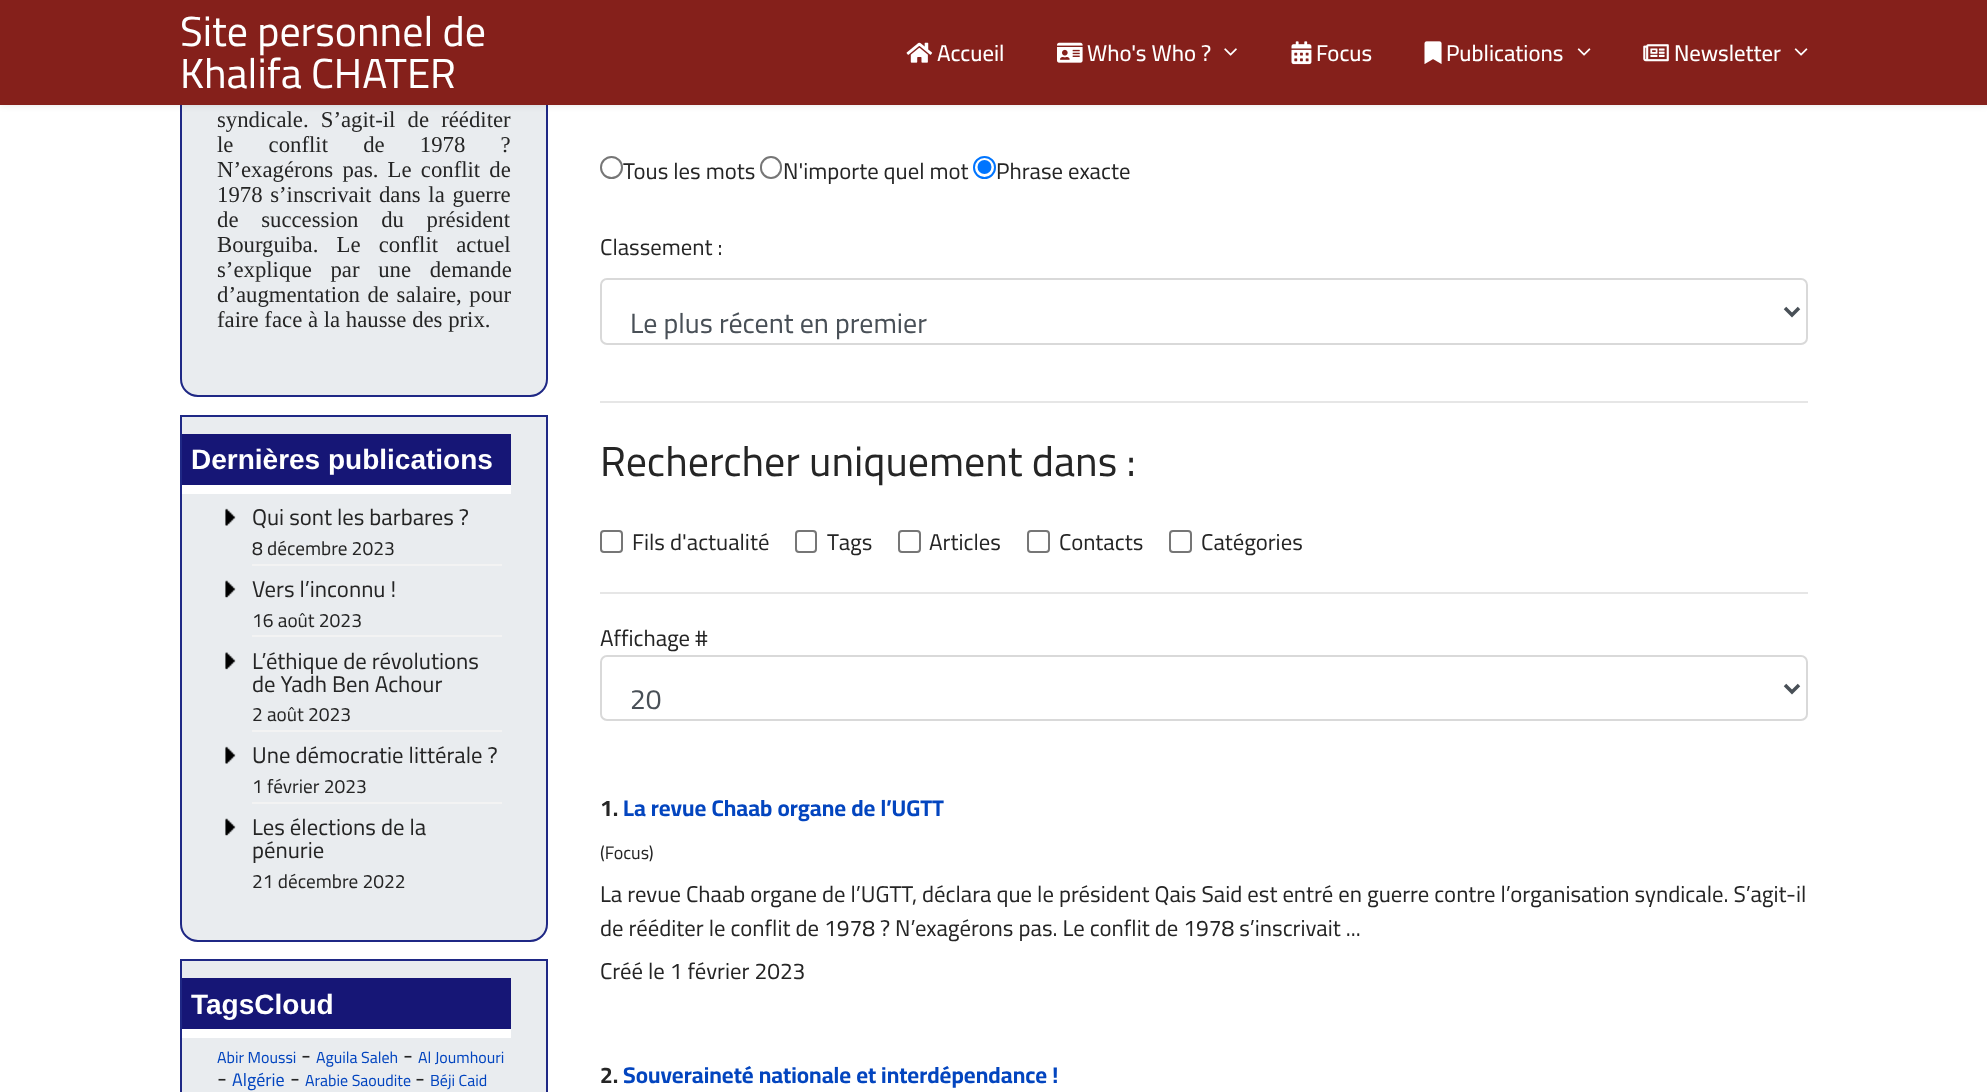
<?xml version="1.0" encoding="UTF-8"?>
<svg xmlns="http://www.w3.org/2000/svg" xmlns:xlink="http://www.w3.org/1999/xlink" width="1987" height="1092">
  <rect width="100%" height="100%" fill="#ffffff" />
  <path d="M 181 -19 h 366 v 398 c 0 9.5 -7.5 17 -17 17 h -332 c -9.5 0 -17 -7.5 -17 -17 z" fill="#e9ecef" stroke="#1f2885" stroke-width="2" />
  <rect width="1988" height="105" fill="#000000" fill-opacity="0.1" filter="blur(3.5px)" />
  <rect width="1987" height="105" fill="#85201b" />
  <image x="906" y="42" width="27" height="21" xlink:href="image1.png" />
  <image x="1057" y="42" width="26" height="21" xlink:href="image2.png" />
  <image x="1224" y="48" width="13" height="8" xlink:href="image3.png" />
  <image x="1291" y="41" width="21" height="24" xlink:href="image4.png" />
  <image x="1424" y="41" width="18" height="23" xlink:href="image5.png" />
  <image x="1577" y="48" width="14" height="8" xlink:href="image6.png" />
  <image x="1643" y="44" width="26" height="18" xlink:href="image7.png" />
  <image x="1794" y="48" width="14" height="8" xlink:href="image6.png" />
  <path d="M 181 416 h 366 v 508 c 0 9.5 -7.5 17 -17 17 h -332 c -9.5 0 -17 -7.5 -17 -17 z" fill="#e9ecef" stroke="#1f2885" stroke-width="2" />
  <rect x="182" y="434" width="329" height="51" fill="#161676" />
  <rect x="182" y="485" width="329" height="9" fill="#ffffff" />
  <rect x="252" y="564" width="250" height="2" fill="#f3f3f3" />
  <image x="225" y="508" width="11" height="18" xlink:href="image8.png" />
  <image x="225" y="509" width="10" height="17" xlink:href="image9.png" />
  <rect x="252" y="635" width="250" height="2" fill="#f3f3f3" />
  <image x="225" y="580" width="11" height="18" xlink:href="image10.png" />
  <image x="225" y="580" width="10" height="17" xlink:href="image11.png" />
  <rect x="252" y="730" width="250" height="2" fill="#f3f3f3" />
  <image x="225" y="652" width="11" height="18" xlink:href="image12.png" />
  <image x="225" y="652" width="10" height="17" xlink:href="image13.png" />
  <rect x="252" y="802" width="250" height="2" fill="#f3f3f3" />
  <image x="225" y="746" width="11" height="18" xlink:href="image8.png" />
  <image x="225" y="747" width="10" height="17" xlink:href="image9.png" />
  <image x="225" y="818" width="11" height="18" xlink:href="image10.png" />
  <image x="225" y="818" width="10" height="17" xlink:href="image11.png" />
  <rect x="181" y="960" width="366" height="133" fill="#e9ecef" stroke="#1f2885" stroke-width="2" />
  <rect x="182" y="978" width="329" height="51" fill="#161676" />
  <rect x="182" y="1029" width="329" height="9" fill="#ffffff" />
  <circle cx="611.5" cy="167.5" r="10.5" fill="none" stroke="#767676" stroke-width="2" />
  <rect x="761" y="157" width="20" height="21" rx="10" fill="none" stroke="#767676" stroke-width="2" />
  <circle cx="984.5" cy="167.5" r="10.5" fill="none" stroke="#0075ff" stroke-width="2" />
  <circle cx="984.5" cy="167" r="7" fill="#0075ff" />
  <rect x="601" y="279" width="1206" height="65" rx="6" fill="none" stroke="#d9d9d9" stroke-width="2" />
  <path d="M 1785 308 l 7 7 l 7 -7" fill="none" stroke="#495057" stroke-width="3.5" />
  <rect x="600" y="401" width="1208" height="2" fill="#e6e6e6" />
  <rect x="601" y="531" width="21" height="21" rx="3" fill="none" stroke="#767676" stroke-width="2" />
  <rect x="796" y="531" width="20" height="21" rx="3" fill="none" stroke="#767676" stroke-width="2" />
  <rect x="899" y="531" width="21" height="21" rx="3" fill="none" stroke="#767676" stroke-width="2" />
  <rect x="1028" y="531" width="21" height="21" rx="3" fill="none" stroke="#767676" stroke-width="2" />
  <rect x="1170" y="531" width="21" height="21" rx="3" fill="none" stroke="#767676" stroke-width="2" />
  <rect x="600" y="592" width="1208" height="2" fill="#e6e6e6" />
  <rect x="601" y="656" width="1206" height="64" rx="6" fill="none" stroke="#d9d9d9" stroke-width="2" />
  <path d="M 1785 685 l 7 7 l 7 -7" fill="none" stroke="#495057" stroke-width="3.5" />
  <text x="180" y="46" style="font-family: Cairo; font-size: 42px; fill: #ffffff">Site personnel de</text>
  <text x="180" y="88" style="font-family: Cairo; font-size: 42px; fill: #ffffff">Khalifa CHATER</text>
  <text x="937" y="61" style="font-family: Cairo; font-size: 22.75px; font-weight: 500; fill: #ffffff">Accueil</text>
  <text x="1087" y="61" style="font-family: Cairo; font-size: 22.75px; font-weight: 500; fill: #ffffff">Who's Who ?</text>
  <text x="1316" y="61" style="font-family: Cairo; font-size: 22.75px; font-weight: 500; fill: #ffffff">Focus</text>
  <text x="1446" y="61" style="font-family: Cairo; font-size: 22.75px; font-weight: 500; fill: #ffffff">Publications</text>
  <text x="1674" y="61" style="font-family: Cairo; font-size: 22.75px; font-weight: 500; fill: #ffffff">Newsletter</text>
  <text x="217" y="127" word-spacing="6.5" style="font-family: Liberation Serif; font-size: 22.75px; fill: #252525">syndicale. S’agit-il de rééditer</text>
  <text x="217" y="152" word-spacing="29.5" style="font-family: Liberation Serif; font-size: 22.75px; fill: #252525">le conflit de 1978 ?</text>
  <text x="217" y="177" word-spacing="3.5" style="font-family: Liberation Serif; font-size: 22.75px; fill: #252525">N’exagérons pas. Le conflit de</text>
  <text x="217" y="202" word-spacing="2" style="font-family: Liberation Serif; font-size: 22.75px; fill: #252525">1978 s’inscrivait dans la guerre</text>
  <text x="217" y="227" word-spacing="17" style="font-family: Liberation Serif; font-size: 22.75px; fill: #252525">de succession du président</text>
  <text x="217" y="252" word-spacing="12.5" style="font-family: Liberation Serif; font-size: 22.75px; fill: #252525">Bourguiba. Le conflit actuel</text>
  <text x="217" y="277" word-spacing="13" style="font-family: Liberation Serif; font-size: 22.75px; fill: #252525">s’explique par une demande</text>
  <text x="217" y="302" word-spacing="2" style="font-family: Liberation Serif; font-size: 22.75px; fill: #252525">d’augmentation de salaire, pour</text>
  <text x="217" y="327" style="font-family: Liberation Serif; font-size: 22.75px; fill: #252525">faire face à la hausse des prix.</text>
  <text x="191" y="469" style="font-family: Liberation Sans; font-size: 28px; font-weight: bold; fill: #ffffff">Dernières publications</text>
  <text x="252" y="525" style="font-family: Cairo; font-size: 22.75px; fill: #252525">Qui sont les barbares ?</text>
  <text x="252" y="555" style="font-family: Cairo; font-size: 19.25px; fill: #252525">8 décembre 2023</text>
  <text x="252" y="597" style="font-family: Cairo; font-size: 22.75px; fill: #252525">Vers l’inconnu !</text>
  <text x="252" y="627" style="font-family: Cairo; font-size: 19.25px; fill: #252525">16 août 2023</text>
  <text x="252" y="669" style="font-family: Cairo; font-size: 22.75px; fill: #252525">L’éthique de révolutions</text>
  <text x="252" y="692" style="font-family: Cairo; font-size: 22.75px; fill: #252525">de Yadh Ben Achour</text>
  <text x="252" y="721" style="font-family: Cairo; font-size: 19.25px; fill: #252525">2 août 2023</text>
  <text x="252" y="763" style="font-family: Cairo; font-size: 22.75px; fill: #252525">Une démocratie littérale ?</text>
  <text x="252" y="793" style="font-family: Cairo; font-size: 19.25px; fill: #252525">1 février 2023</text>
  <text x="252" y="835" style="font-family: Cairo; font-size: 22.75px; fill: #252525">Les élections de la</text>
  <text x="252" y="858" style="font-family: Cairo; font-size: 22.75px; fill: #252525">pénurie</text>
  <text x="252" y="888" style="font-family: Cairo; font-size: 19.25px; fill: #252525">21 décembre 2022</text>
  <text x="191" y="1014" style="font-family: Liberation Sans; font-size: 28px; font-weight: bold; fill: #ffffff">TagsCloud</text>
  <text x="217" y="1063" style="font-family: Cairo; font-size: 16px; fill: #0345bf">Abir Moussi</text>
  <text x="301" y="1063" style="font-family: Cairo; font-size: 22.75px; fill: #252525">-</text>
  <text x="316" y="1063" style="font-family: Cairo; font-size: 16px; fill: #0345bf">Aguila Saleh</text>
  <text x="403" y="1063" style="font-family: Cairo; font-size: 22.75px; fill: #252525">-</text>
  <text x="418" y="1063" style="font-family: Cairo; font-size: 16px; fill: #0345bf">Al Joumhouri</text>
  <text x="217" y="1086" style="font-family: Cairo; font-size: 22.75px; fill: #252525">-</text>
  <text x="232" y="1086" style="font-family: Cairo; font-size: 18px; fill: #0345bf">Algérie</text>
  <text x="290" y="1086" style="font-family: Cairo; font-size: 22.75px; fill: #252525">-</text>
  <text x="305" y="1086" style="font-family: Cairo; font-size: 16px; fill: #0345bf">Arabie Saoudite</text>
  <text x="415" y="1086" style="font-family: Cairo; font-size: 22.75px; fill: #252525">-</text>
  <text x="430" y="1086" style="font-family: Cairo; font-size: 16px; fill: #0345bf">Béji Caid</text>
  <text x="623" y="179" style="font-family: Cairo; font-size: 22.75px; fill: #252525">Tous les mots</text>
  <text x="783" y="179" style="font-family: Cairo; font-size: 22.75px; fill: #252525">N'importe quel mot</text>
  <text x="996" y="179" style="font-family: Cairo; font-size: 22.75px; fill: #252525">Phrase exacte</text>
  <text x="600" y="255" style="font-family: Cairo; font-size: 22.75px; fill: #252525">Classement :</text>
  <text x="630" y="333" style="font-family: Cairo; font-size: 28px; fill: #495057">Le plus récent en premier</text>
  <text x="600" y="476" style="font-family: Cairo; font-size: 42px; fill: #252525">Rechercher uniquement dans :</text>
  <text x="632" y="550" style="font-family: Cairo; font-size: 22.75px; fill: #252525">Fils d'actualité</text>
  <text x="827" y="550" style="font-family: Cairo; font-size: 22.75px; fill: #252525">Tags</text>
  <text x="929" y="550" style="font-family: Cairo; font-size: 22.75px; fill: #252525">Articles</text>
  <text x="1059" y="550" style="font-family: Cairo; font-size: 22.75px; fill: #252525">Contacts</text>
  <text x="1201" y="550" style="font-family: Cairo; font-size: 22.75px; fill: #252525">Catégories</text>
  <text x="600" y="646" style="font-family: Cairo; font-size: 22.75px; fill: #252525">Affichage #</text>
  <text x="630" y="709" style="font-family: Cairo; font-size: 28px; fill: #495057">20</text>
  <text x="600" y="816" style="font-family: Cairo; font-size: 22.75px; font-weight: bold; fill: #252525">1.</text>
  <text x="623" y="816" style="font-family: Cairo; font-size: 22.75px; font-weight: bold; fill: #0345bf">La revue Chaab organe de l’UGTT</text>
  <text x="600" y="859" style="font-family: Cairo; font-size: 18px; fill: #252525">(Focus)</text>
  <text x="600" y="902" style="font-family: Cairo; font-size: 22.75px; fill: #252525">La revue Chaab organe de l’UGTT, déclara que le président Qais Said est entré en guerre contre l’organisation syndicale. S’agit-il</text>
  <text x="600" y="936" style="font-family: Cairo; font-size: 22.75px; fill: #252525">de rééditer le conflit de 1978 ? N’exagérons pas. Le conflit de 1978 s’inscrivait ...</text>
  <text x="600" y="979" style="font-family: Cairo; font-size: 22.75px; fill: #252525">Créé le 1 février 2023</text>
  <text x="600" y="1083" style="font-family: Cairo; font-size: 22.75px; font-weight: bold; fill: #252525">2.</text>
  <text x="623" y="1083" style="font-family: Cairo; font-size: 22.75px; font-weight: bold; fill: #0345bf">Souveraineté nationale et interdépendance !</text>
</svg>
